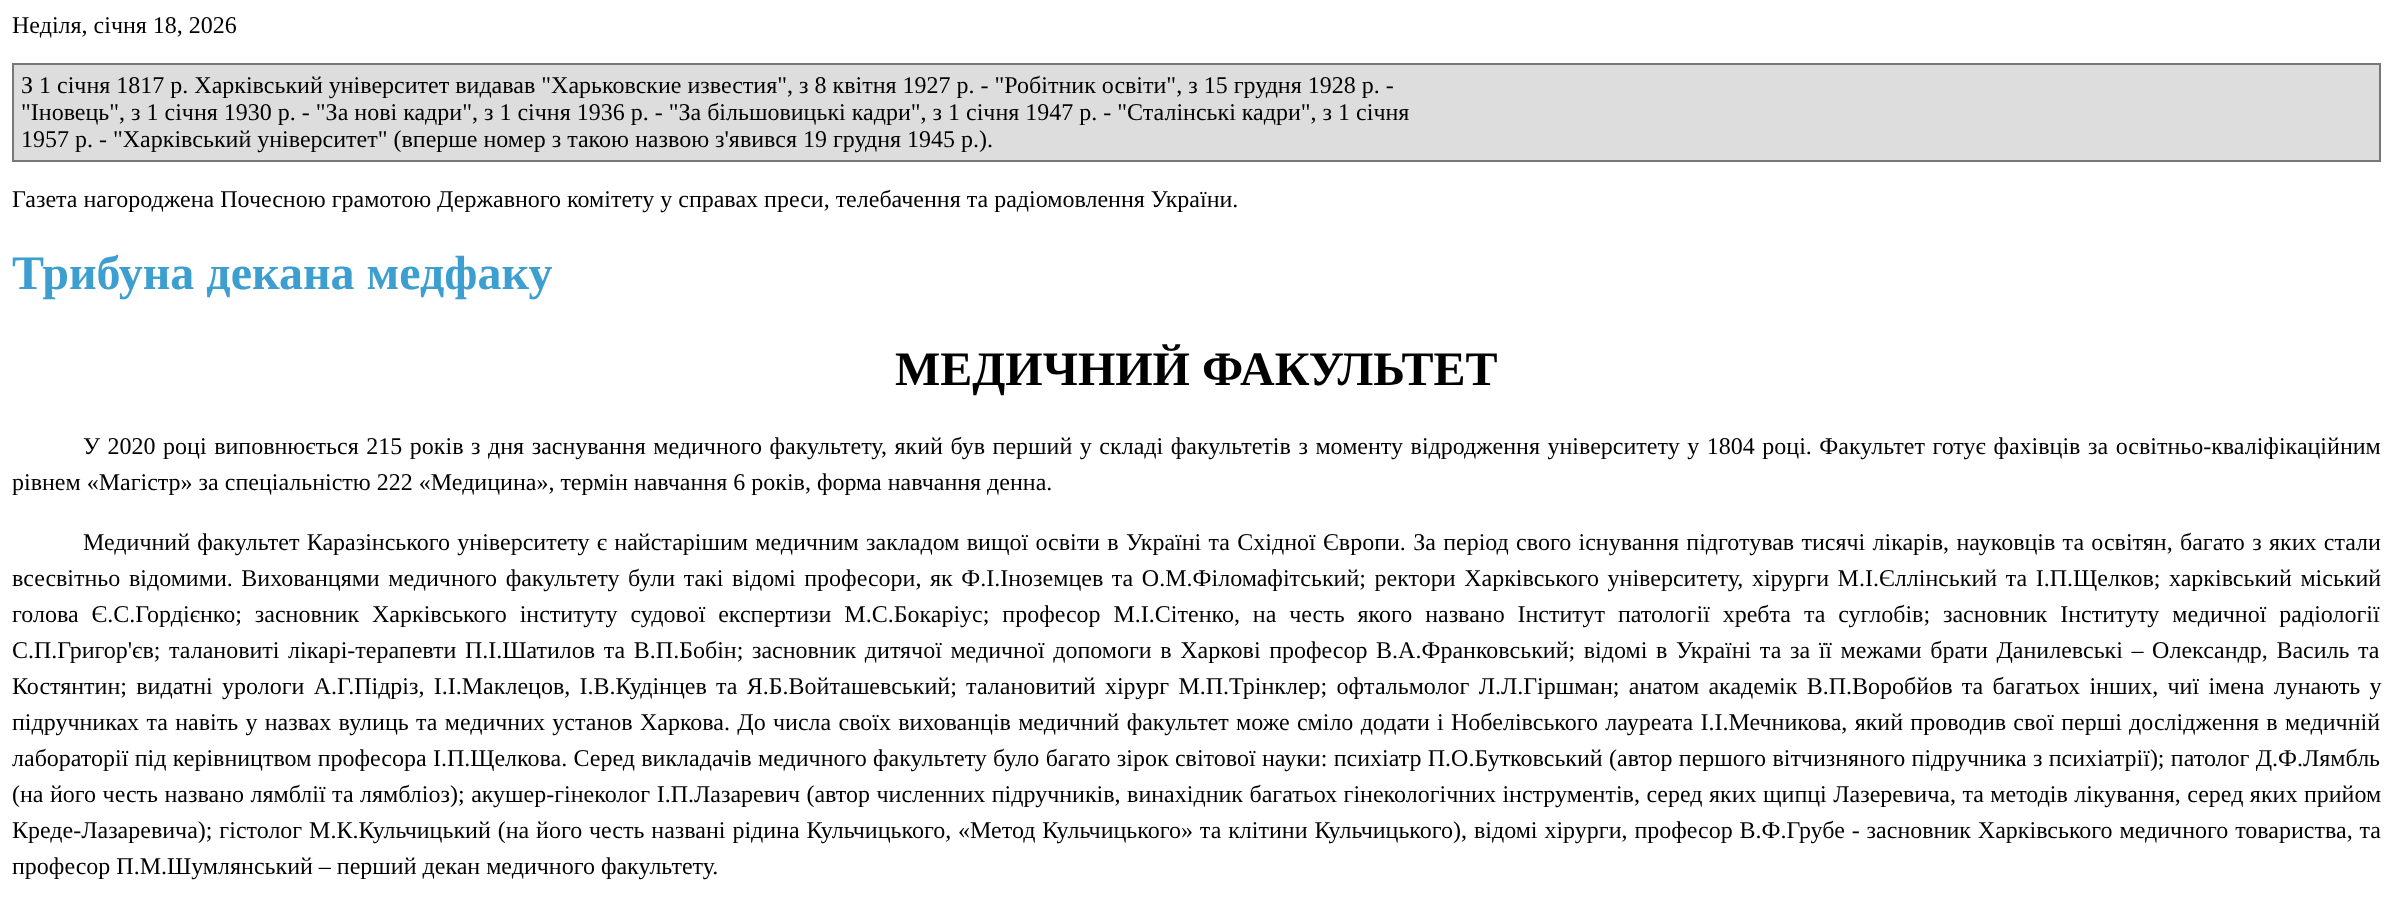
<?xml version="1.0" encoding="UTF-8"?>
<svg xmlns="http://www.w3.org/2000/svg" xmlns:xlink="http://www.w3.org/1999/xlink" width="2392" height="908">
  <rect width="100%" height="100%" fill="#ffffff" />
  <rect x="13" y="64" width="2367" height="97" fill="#dddddd" stroke="#777777" stroke-width="2" />
  <text x="12" y="33" style="font-family: Liberation Serif; font-size: 24px; fill: #000000">Неділя, січня 18, 2026</text>
  <text x="21" y="93" style="font-family: Liberation Serif; font-size: 24px; fill: #000000">З 1 січня 1817 р. Харківський університет видавав "Харьковские известия", з 8 квітня 1927 р. - "Робітник освіти", з 15 грудня 1928 р. -</text>
  <text x="21" y="120" style="font-family: Liberation Serif; font-size: 24px; fill: #000000">"Іновець", з 1 січня 1930 р. - "За нові кадри", з 1 січня 1936 р. - "За більшовицькі кадри", з 1 січня 1947 р. - "Сталінські кадри", з 1 січня</text>
  <text x="21" y="147" style="font-family: Liberation Serif; font-size: 24px; fill: #000000">1957 р. - "Харківський університет" (вперше номер з такою назвою з'явився 19 грудня 1945 р.).</text>
  <text x="12" y="207" style="font-family: Liberation Serif; font-size: 24px; fill: #000000">Газета нагороджена Почесною грамотою Державного комітету у справах преси, телебачення та радіомовлення України.</text>
  <text x="12" y="289" style="font-family: Liberation Serif; font-size: 48px; font-weight: bold; fill: #3d9fd0">Трибуна декана медфаку</text>
  <text x="895" y="385" style="font-family: Liberation Serif; font-size: 48px; font-weight: bold; fill: #000000">МЕДИЧНИЙ ФАКУЛЬТЕТ</text>
  <text x="83" y="454" word-spacing="1.55" style="font-family: Liberation Serif; font-size: 24px; fill: #000000">У 2020 році виповнюється 215 років з дня заснування медичного факультету, який був перший у складі факультетів з моменту відродження університету у 1804 році. Факультет готує фахівців за освітньо-кваліфікаційним</text>
  <text x="12" y="490" style="font-family: Liberation Serif; font-size: 24px; fill: #000000">рівнем «Магістр» за спеціальністю 222 «Медицина», термін навчання 6 років, форма навчання денна.</text>
  <text x="83" y="550" word-spacing="1.3" style="font-family: Liberation Serif; font-size: 24px; fill: #000000">Медичний факультет Каразінського університету є найстарішим медичним закладом вищої освіти в Україні та Східної Європи. За період свого існування підготував тисячі лікарів, науковців та освітян, багато з яких стали</text>
  <text x="12" y="586" word-spacing="2.6" style="font-family: Liberation Serif; font-size: 24px; fill: #000000">всесвітньо відомими. Вихованцями медичного факультету були такі відомі професори, як Ф.І.Іноземцев та О.М.Філомафітський; ректори Харківського університету, хірурги М.І.Єллінський та І.П.Щелков; харківський міський</text>
  <text x="12" y="622" word-spacing="6.9" style="font-family: Liberation Serif; font-size: 24px; fill: #000000">голова Є.С.Гордієнко; засновник Харківського інституту судової експертизи М.С.Бокаріус; професор М.І.Сітенко, на честь якого названо Інститут патології хребта та суглобів; засновник Інституту медичної радіології</text>
  <text x="12" y="658" word-spacing="2.6" style="font-family: Liberation Serif; font-size: 24px; fill: #000000">С.П.Григор'єв; талановиті лікарі-терапевти П.І.Шатилов та В.П.Бобін; засновник дитячої медичної допомоги в Харкові професор В.А.Франковський; відомі в Україні та за її межами брати Данилевські – Олександр, Василь та</text>
  <text x="12" y="694" word-spacing="3.3" style="font-family: Liberation Serif; font-size: 24px; fill: #000000">Костянтин; видатні урологи А.Г.Підріз, І.І.Маклецов, І.В.Кудінцев та Я.Б.Войташевський; талановитий хірург М.П.Трінклер; офтальмолог Л.Л.Гіршман; анатом академік В.П.Воробйов та багатьох інших, чиї імена лунають у</text>
  <text x="12" y="730" word-spacing="1.3" style="font-family: Liberation Serif; font-size: 24px; fill: #000000">підручниках та навіть у назвах вулиць та медичних установ Харкова. До числа своїх вихованців медичний факультет може сміло додати і Нобелівського лауреата І.І.Мечникова, який проводив свої перші дослідження в медичній</text>
  <text x="12" y="766" word-spacing="0.3" style="font-family: Liberation Serif; font-size: 24px; fill: #000000">лабораторії під керівництвом професора І.П.Щелкова. Серед викладачів медичного факультету було багато зірок світової науки: психіатр П.О.Бутковський (автор першого вітчизняного підручника з психіатрії); патолог Д.Ф.Лямбль</text>
  <text x="12" y="802" word-spacing="0.5" style="font-family: Liberation Serif; font-size: 24px; fill: #000000">(на його честь названо лямблії та лямбліоз); акушер-гінеколог І.П.Лазаревич (автор численних підручників, винахідник багатьох гінекологічних інструментів, серед яких щипці Лазеревича, та методів лікування, серед яких прийом</text>
  <text x="12" y="838" word-spacing="0.9" style="font-family: Liberation Serif; font-size: 24px; fill: #000000">Креде-Лазаревича); гістолог М.К.Кульчицький (на його честь названі рідина Кульчицького, «Метод Кульчицького» та клітини Кульчицького), відомі хірурги, професор В.Ф.Грубе - засновник Харківського медичного товариства, та</text>
  <text x="12" y="874" style="font-family: Liberation Serif; font-size: 24px; fill: #000000">професор П.М.Шумлянський – перший декан медичного факультету.</text>
</svg>
